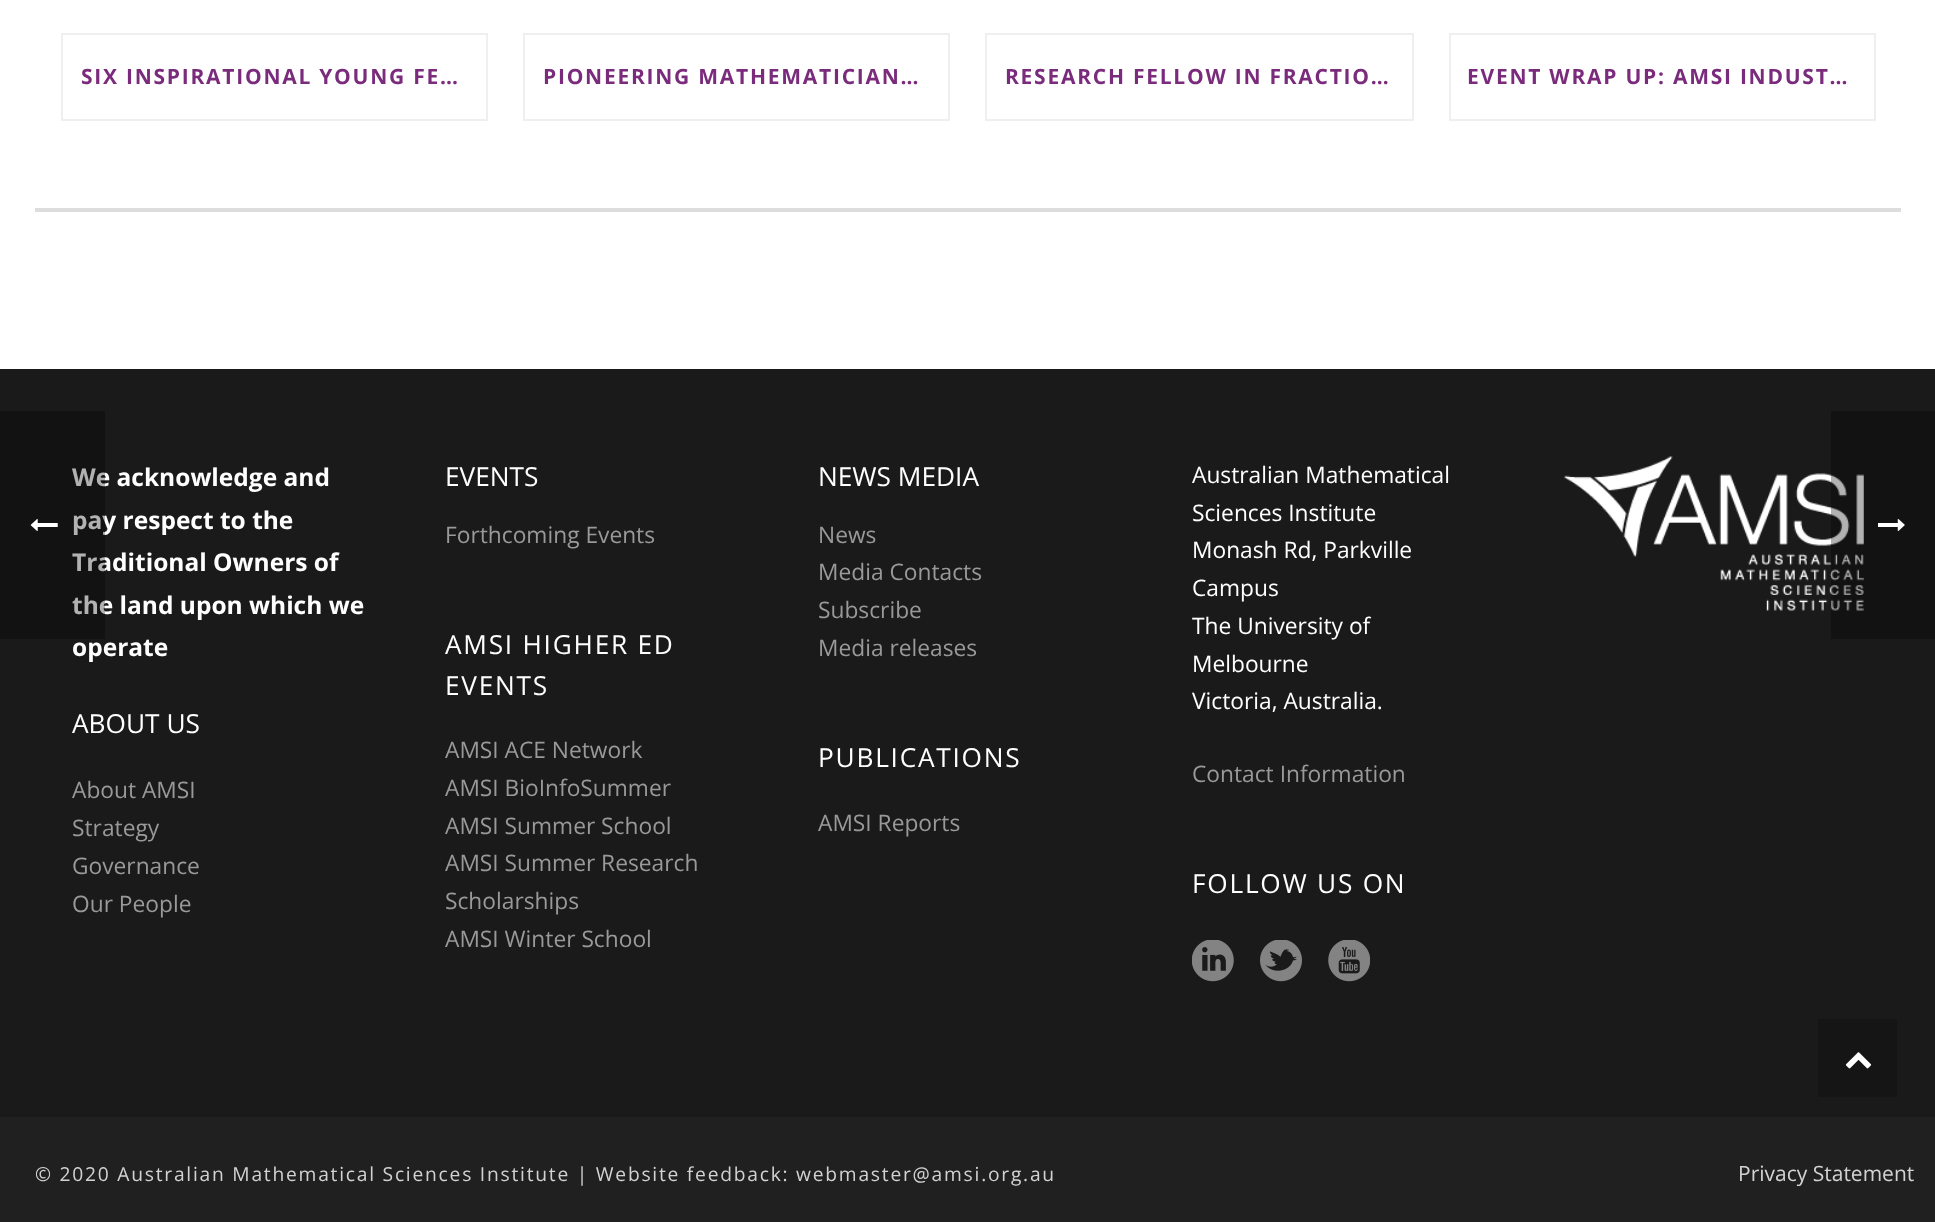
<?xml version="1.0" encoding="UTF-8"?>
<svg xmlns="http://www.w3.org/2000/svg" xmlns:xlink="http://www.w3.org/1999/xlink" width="1935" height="1222">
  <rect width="100%" height="100%" fill="#1a1a1a" />
  <rect width="1935" height="369" fill="#ffffff" />
  <rect x="35" y="208" width="1866" height="4" fill="#dddddd" />
  <rect x="62" y="34" width="425" height="86" fill="none" stroke="#efefef" stroke-width="2" />
  <rect x="524" y="34" width="425" height="86" fill="none" stroke="#efefef" stroke-width="2" />
  <rect x="986" y="34" width="427" height="86" fill="none" stroke="#efefef" stroke-width="2" />
  <rect x="1450" y="34" width="425" height="86" fill="none" stroke="#efefef" stroke-width="2" />
  <image x="1192" y="940" width="42" height="42" xlink:href="image1.png" />
  <image x="1260" y="940" width="42" height="42" xlink:href="image2.png" />
  <image x="1328" y="940" width="42" height="42" xlink:href="image3.png" />
  <image x="1564" y="456" width="300" height="155" xlink:href="image4.png" />
  <rect y="1117" width="1935" height="105" fill="#202020" />
  <rect x="1831" y="411" width="104" height="228" fill="#000000" fill-opacity="0.3" />
  <image x="1878" y="519" width="27" height="12" xlink:href="image6.png" />
  <rect x="1818" y="1019" width="79" height="78" fill="#151515" />
  <image x="1845" y="1052" width="27" height="17" xlink:href="image7.png" />
  <text x="81" y="84" style="font-family: Open Sans; font-size: 21px; font-weight: bold; letter-spacing: 1.75px; fill: #7a2b7c">SIX INSPIRATIONAL YOUNG FE…</text>
  <text x="543" y="84" style="font-family: Open Sans; font-size: 21px; font-weight: bold; letter-spacing: 1.75px; fill: #7a2b7c">PIONEERING MATHEMATICIAN…</text>
  <text x="1005" y="84" style="font-family: Open Sans; font-size: 21px; font-weight: bold; letter-spacing: 1.75px; fill: #7a2b7c">RESEARCH FELLOW IN FRACTIO…</text>
  <text x="1467" y="84" style="font-family: Open Sans; font-size: 21px; font-weight: bold; letter-spacing: 1.75px; fill: #7a2b7c">EVENT WRAP UP: AMSI INDUST…</text>
  <text x="72" y="486" style="font-family: Open Sans; font-size: 24.5px; font-weight: bold; fill: #ffffff">We acknowledge and</text>
  <text x="72" y="529" style="font-family: Open Sans; font-size: 24.5px; font-weight: bold; fill: #ffffff">pay respect to the</text>
  <text x="72" y="571" style="font-family: Open Sans; font-size: 24.5px; font-weight: bold; fill: #ffffff">Traditional Owners of</text>
  <text x="72" y="614" style="font-family: Open Sans; font-size: 24.5px; font-weight: bold; fill: #ffffff">the land upon which we</text>
  <text x="72" y="656" style="font-family: Open Sans; font-size: 24.5px; font-weight: bold; fill: #ffffff">operate</text>
  <text x="72" y="733" style="font-family: Open Sans; font-size: 26.25px; fill: #ffffff">ABOUT US</text>
  <text x="72" y="798" style="font-family: Open Sans; font-size: 22.75px; fill: #999999">About AMSI</text>
  <text x="72" y="836" style="font-family: Open Sans; font-size: 22.75px; fill: #999999">Strategy</text>
  <text x="72" y="874" style="font-family: Open Sans; font-size: 22.75px; fill: #999999">Governance</text>
  <text x="72" y="912" style="font-family: Open Sans; font-size: 22.75px; fill: #999999">Our People</text>
  <text x="445" y="486" style="font-family: Open Sans; font-size: 26.25px; fill: #ffffff">EVENTS</text>
  <text x="445" y="543" style="font-family: Open Sans; font-size: 22.75px; fill: #999999">Forthcoming Events</text>
  <text x="445" y="654" style="font-family: Open Sans; font-size: 26.25px; letter-spacing: 1.75px; fill: #ffffff">AMSI HIGHER ED</text>
  <text x="445" y="695" style="font-family: Open Sans; font-size: 26.25px; letter-spacing: 1.75px; fill: #ffffff">EVENTS</text>
  <text x="445" y="758" style="font-family: Open Sans; font-size: 22.75px; fill: #999999">AMSI ACE Network</text>
  <text x="445" y="796" style="font-family: Open Sans; font-size: 22.75px; fill: #999999">AMSI BioInfoSummer</text>
  <text x="445" y="834" style="font-family: Open Sans; font-size: 22.75px; fill: #999999">AMSI Summer School</text>
  <text x="445" y="871" style="font-family: Open Sans; font-size: 22.75px; fill: #999999">AMSI Summer Research</text>
  <text x="445" y="909" style="font-family: Open Sans; font-size: 22.75px; fill: #999999">Scholarships</text>
  <text x="445" y="947" style="font-family: Open Sans; font-size: 22.75px; fill: #999999">AMSI Winter School</text>
  <text x="818" y="486" style="font-family: Open Sans; font-size: 26.25px; fill: #ffffff">NEWS MEDIA</text>
  <text x="818" y="543" style="font-family: Open Sans; font-size: 22.75px; fill: #999999">News</text>
  <text x="818" y="580" style="font-family: Open Sans; font-size: 22.75px; fill: #999999">Media Contacts</text>
  <text x="818" y="618" style="font-family: Open Sans; font-size: 22.75px; fill: #999999">Subscribe</text>
  <text x="818" y="656" style="font-family: Open Sans; font-size: 22.75px; fill: #999999">Media releases</text>
  <text x="818" y="767" style="font-family: Open Sans; font-size: 26.25px; letter-spacing: 1.75px; fill: #ffffff">PUBLICATIONS</text>
  <text x="818" y="831" style="font-family: Open Sans; font-size: 22.75px; fill: #999999">AMSI Reports</text>
  <text x="1192" y="483" style="font-family: Open Sans; font-size: 22.75px; fill: #ffffff">Australian Mathematical</text>
  <text x="1192" y="521" style="font-family: Open Sans; font-size: 22.75px; fill: #ffffff">Sciences Institute</text>
  <text x="1192" y="558" style="font-family: Open Sans; font-size: 22.75px; fill: #ffffff">Monash Rd, Parkville</text>
  <text x="1192" y="596" style="font-family: Open Sans; font-size: 22.75px; fill: #ffffff">Campus</text>
  <text x="1192" y="634" style="font-family: Open Sans; font-size: 22.75px; fill: #ffffff">The University of</text>
  <text x="1192" y="672" style="font-family: Open Sans; font-size: 22.75px; fill: #ffffff">Melbourne</text>
  <text x="1192" y="709" style="font-family: Open Sans; font-size: 22.75px; fill: #ffffff">Victoria, Australia.</text>
  <text x="1192" y="782" style="font-family: Open Sans; font-size: 22.75px; fill: #999999">Contact Information</text>
  <text x="1192" y="893" style="font-family: Open Sans; font-size: 26.25px; letter-spacing: 1.75px; fill: #ffffff">FOLLOW US ON</text>
  <text x="35" y="1181" style="font-family: Open Sans; font-size: 19.25px; letter-spacing: 1.75px; fill: #d2d2d2">© 2020 Australian Mathematical Sciences Institute | Website feedback: webmaster@amsi.org.au</text>
  <text x="1738" y="1181" style="font-family: Open Sans; font-size: 21px; fill: #d2d2d2">Privacy Statement</text>
  <rect y="411" width="105" height="228" fill="#000000" fill-opacity="0.3" />
  <image x="30" y="519" width="28" height="12" xlink:href="image5.png" />
</svg>
